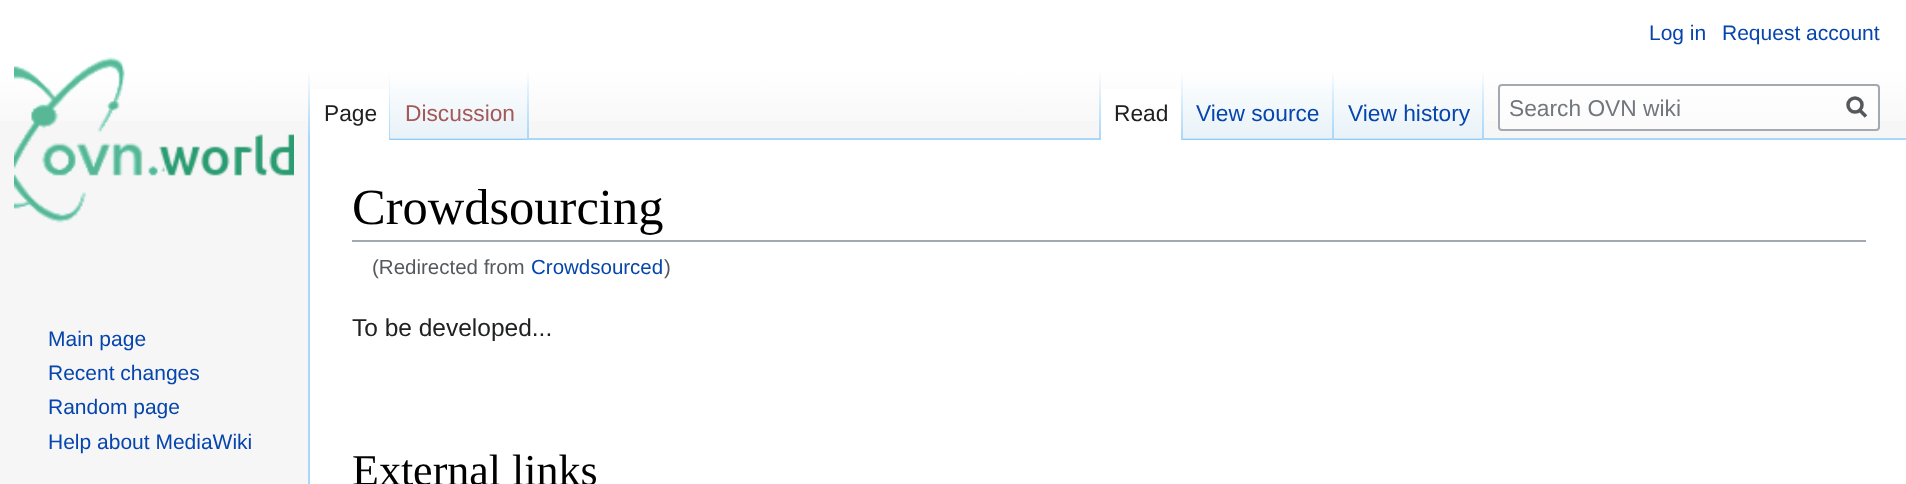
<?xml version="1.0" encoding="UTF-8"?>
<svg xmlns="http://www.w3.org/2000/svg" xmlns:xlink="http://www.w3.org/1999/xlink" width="1906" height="484">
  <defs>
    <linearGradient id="g1" gradientUnits="userSpaceOnUse" x1="954" y1="0" x2="954" y2="140"><stop offset="0.5" stop-color="#ffffff" /><stop offset="1" stop-color="#f6f6f6" /></linearGradient>
    <linearGradient id="g2" gradientUnits="userSpaceOnUse" x1="309" y1="70" x2="309" y2="140"><stop offset="0" stop-color="#a7d7f9" stop-opacity="0" /><stop offset="1" stop-color="#a7d7f9" /></linearGradient>
    <linearGradient id="g3" gradientUnits="userSpaceOnUse" x1="389" y1="70" x2="389" y2="140"><stop offset="0" stop-color="#ffffff" /><stop offset="1" stop-color="#a7d7f9" /></linearGradient>
    <linearGradient id="g4" gradientUnits="userSpaceOnUse" x1="459" y1="140" x2="459" y2="70"><stop offset="0" stop-color="#77c1f6" /><stop offset="0.03" stop-color="#e8f2f8" /><stop offset="1" stop-color="#ffffff" /></linearGradient>
    <linearGradient id="g5" gradientUnits="userSpaceOnUse" x1="528" y1="70" x2="528" y2="140"><stop offset="0" stop-color="#a7d7f9" stop-opacity="0" /><stop offset="1" stop-color="#a7d7f9" /></linearGradient>
    <linearGradient id="g6" gradientUnits="userSpaceOnUse" x1="1100" y1="70" x2="1100" y2="140"><stop offset="0" stop-color="#a7d7f9" stop-opacity="0" /><stop offset="1" stop-color="#a7d7f9" /></linearGradient>
    <linearGradient id="g7" gradientUnits="userSpaceOnUse" x1="1182" y1="70" x2="1182" y2="140"><stop offset="0" stop-color="#ffffff" /><stop offset="1" stop-color="#a7d7f9" /></linearGradient>
    <linearGradient id="g8" gradientUnits="userSpaceOnUse" x1="1258" y1="140" x2="1258" y2="70"><stop offset="0" stop-color="#77c1f6" /><stop offset="0.03" stop-color="#e8f2f8" /><stop offset="1" stop-color="#ffffff" /></linearGradient>
    <linearGradient id="g9" gradientUnits="userSpaceOnUse" x1="1333" y1="70" x2="1333" y2="140"><stop offset="0" stop-color="#a7d7f9" stop-opacity="0" /><stop offset="1" stop-color="#a7d7f9" /></linearGradient>
    <linearGradient id="g10" gradientUnits="userSpaceOnUse" x1="1409" y1="140" x2="1409" y2="70"><stop offset="0" stop-color="#77c1f6" /><stop offset="0.03" stop-color="#e8f2f8" /><stop offset="1" stop-color="#ffffff" /></linearGradient>
    <linearGradient id="g11" gradientUnits="userSpaceOnUse" x1="1483" y1="70" x2="1483" y2="140"><stop offset="0" stop-color="#a7d7f9" stop-opacity="0" /><stop offset="1" stop-color="#a7d7f9" /></linearGradient>
  </defs>
  <rect width="100%" height="100%" fill="#f6f6f6" />
  <rect width="1906" height="121" fill="url(#g1)" />
  <rect x="308" y="138" width="2" height="346" fill="#a7d7f9" />
  <rect x="308" y="70" width="2" height="70" fill="url(#g2)" />
  <rect x="310" y="89" width="79" height="51" fill="#ffffff" />
  <rect x="389" y="70" width="1" height="70" fill="url(#g3)" />
  <rect x="390" y="80" width="139" height="60" fill="url(#g4)" />
  <rect x="527" y="70" width="2" height="70" fill="url(#g5)" />
  <rect x="529" y="138" width="1377" height="2" fill="#a7d7f9" />
  <rect x="1099" y="70" width="2" height="70" fill="url(#g6)" />
  <rect x="1101" y="89" width="80" height="51" fill="#ffffff" />
  <rect x="1181" y="70" width="2" height="70" fill="url(#g7)" />
  <rect x="1183" y="80" width="151" height="60" fill="url(#g8)" />
  <rect x="1332" y="70" width="2" height="70" fill="url(#g9)" />
  <rect x="1334" y="80" width="150" height="60" fill="url(#g10)" />
  <rect x="1482" y="70" width="2" height="70" fill="url(#g11)" />
  <rect x="1499" y="85" width="380" height="45" rx="3" fill="#ffffff" fill-opacity="0.5" stroke="#a2a9b1" stroke-width="2" />
  <path d="M 1866 116.5 l -7 -7" fill="none" stroke="#54595d" stroke-width="3.5" />
  <circle cx="1855" cy="105" r="7" fill="none" stroke="#54595d" stroke-width="3.5" />
  <image x="14" y="57" width="280" height="166" xlink:href="image1.png" />
  <rect x="310" y="140" width="1596" height="344" fill="#ffffff" />
  <rect x="352" y="240" width="1514" height="2" fill="#a2a9b1" />
  <text x="1649" y="40" style="font-family: Liberation Sans; font-size: 21px; fill: #0645ad">Log in</text>
  <text x="1722" y="40" style="font-family: Liberation Sans; font-size: 21px; fill: #0645ad">Request account</text>
  <text x="324" y="121" style="font-family: Liberation Sans; font-size: 22.75px; fill: #202122">Page</text>
  <text x="405" y="121" style="font-family: Liberation Sans; font-size: 22.75px; fill: #a55858">Discussion</text>
  <text x="1114" y="121" style="font-family: Liberation Sans; font-size: 22.75px; fill: #202122">Read</text>
  <text x="1196" y="121" style="font-family: Liberation Sans; font-size: 22.75px; fill: #0645ad">View source</text>
  <text x="1348" y="121" style="font-family: Liberation Sans; font-size: 22.75px; fill: #0645ad">View history</text>
  <text x="1509" y="116" style="font-family: Liberation Sans; font-size: 22.75px; fill: #72777d">Search OVN wiki</text>
  <text x="48" y="346" style="font-family: Liberation Sans; font-size: 21px; fill: #0645ad">Main page</text>
  <text x="48" y="380" style="font-family: Liberation Sans; font-size: 21px; fill: #0645ad">Recent changes</text>
  <text x="48" y="414" style="font-family: Liberation Sans; font-size: 21px; fill: #0645ad">Random page</text>
  <text x="48" y="449" style="font-family: Liberation Sans; font-size: 21px; fill: #0645ad">Help about MediaWiki</text>
  <text x="352" y="224" style="font-family: Liberation Serif; font-size: 50.5px; fill: #000000">Crowdsourcing</text>
  <text x="372" y="274" style="font-family: Liberation Sans; font-size: 20.5px; fill: #54595d">(Redirected from</text>
  <text x="531" y="274" style="font-family: Liberation Sans; font-size: 20.5px; fill: #0645ad">Crowdsourced</text>
  <text x="664" y="274" style="font-family: Liberation Sans; font-size: 20.5px; fill: #54595d">)</text>
  <text x="352" y="336" style="font-family: Liberation Sans; font-size: 24.5px; fill: #202122">To be developed...</text>
  <text x="352" y="485" style="font-family: Liberation Serif; font-size: 44px; fill: #000000">External links</text>
</svg>
